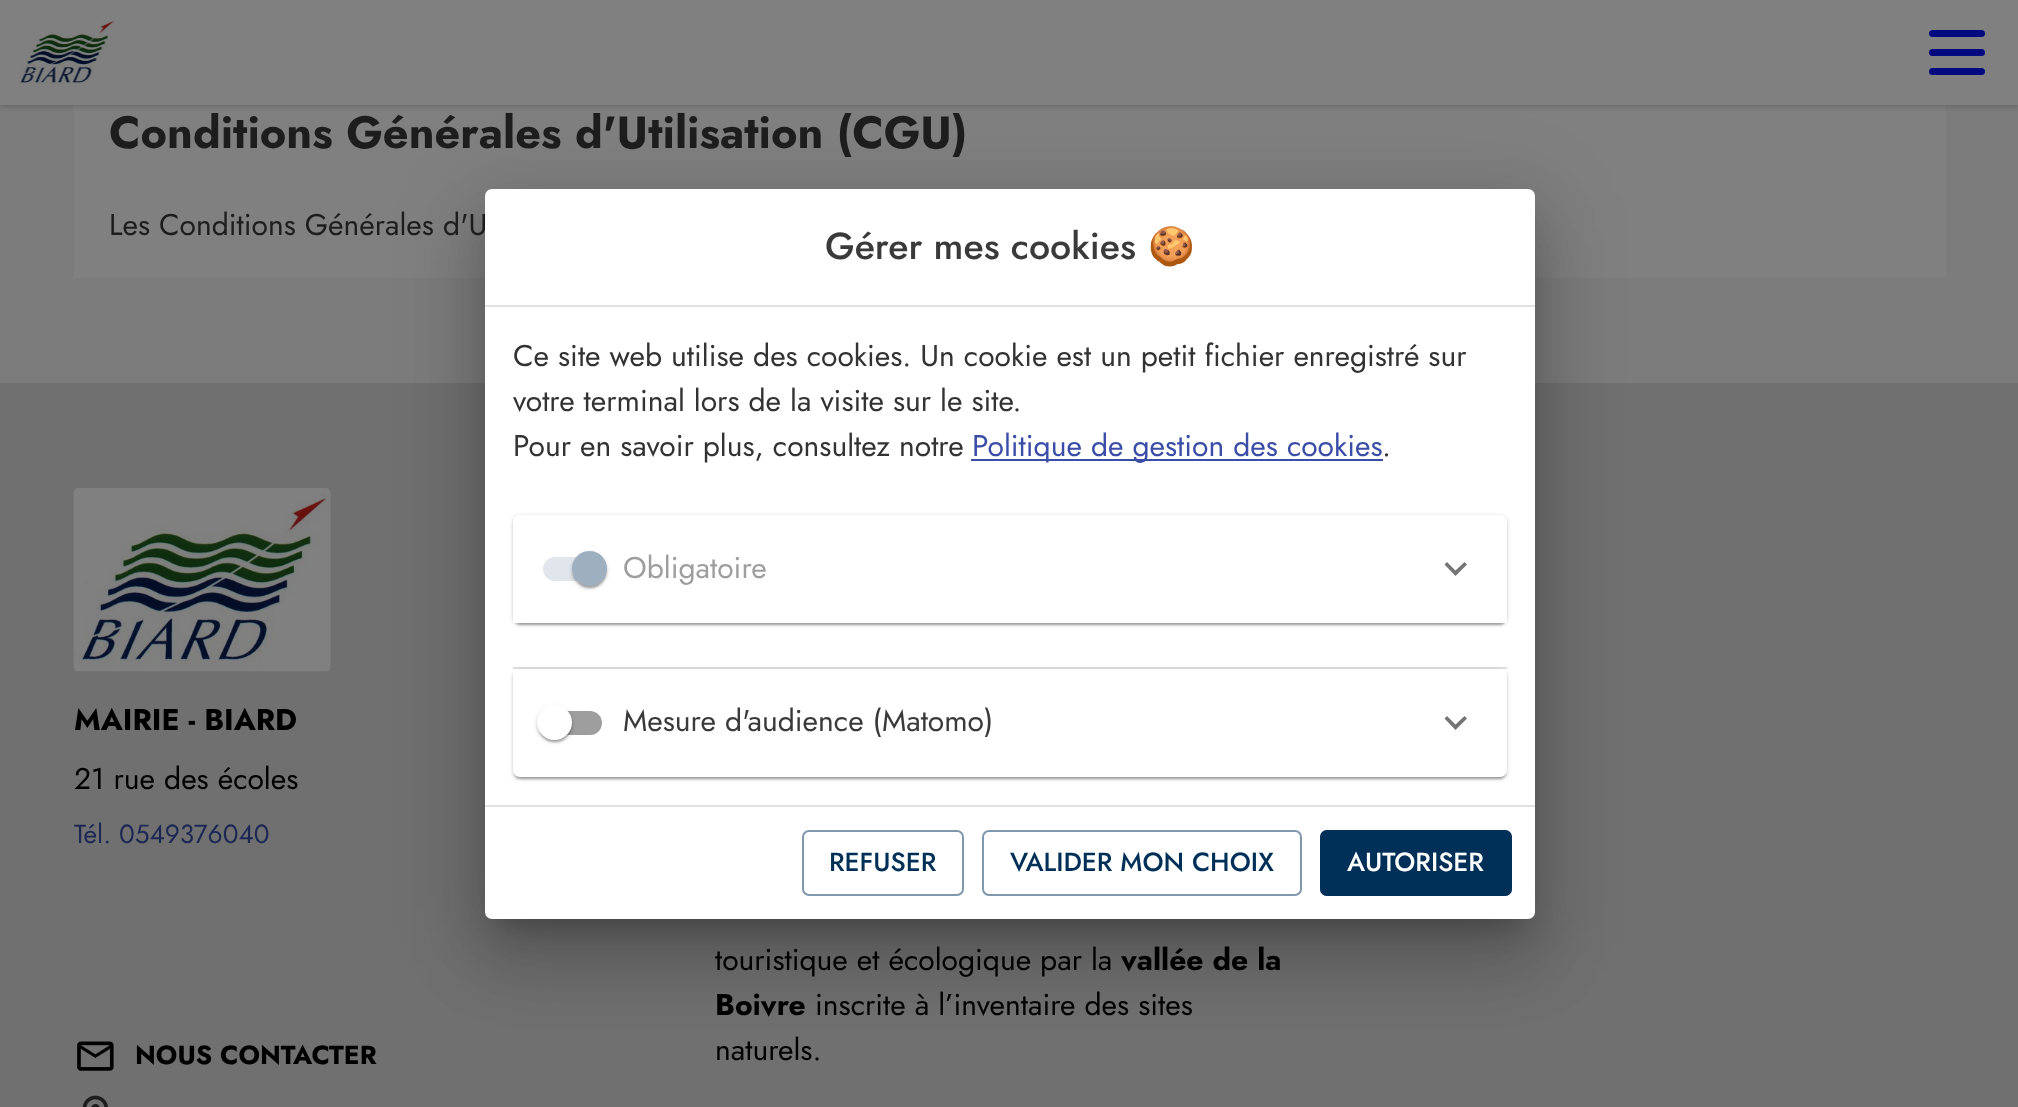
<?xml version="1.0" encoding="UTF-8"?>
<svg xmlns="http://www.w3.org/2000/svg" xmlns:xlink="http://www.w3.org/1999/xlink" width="2018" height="1107">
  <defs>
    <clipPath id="clip1"><path d="M 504 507 h 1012 v 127 h -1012 z m 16 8 h 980 c 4 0 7 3 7 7 v 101 h -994 v -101 c 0 -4 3 -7 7 -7 z" clip-rule="evenodd" /></clipPath>
    <clipPath id="clip2"><path d="M 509 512 h 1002 v 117 h -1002 z m 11 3 h 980 c 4 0 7 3 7 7 v 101 h -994 v -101 c 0 -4 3 -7 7 -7 z" clip-rule="evenodd" /></clipPath>
    <clipPath id="clip3"><rect x="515" y="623" width="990" height="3" /></clipPath>
    <clipPath id="clip4"><path d="M 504 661 h 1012 v 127 h -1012 z m 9 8 h 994 v 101 c 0 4 -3 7 -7 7 h -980 c -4 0 -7 -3 -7 -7 z" clip-rule="evenodd" /></clipPath>
    <clipPath id="clip5"><path d="M 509 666 h 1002 v 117 h -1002 z m 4 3 h 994 v 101 c 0 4 -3 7 -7 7 h -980 c -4 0 -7 -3 -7 -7 z" clip-rule="evenodd" /></clipPath>
    <clipPath id="clip6"><path d="M 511 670 h 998 v 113 h -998 z m 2 -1 h 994 v 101 c 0 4 -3 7 -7 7 h -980 c -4 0 -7 -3 -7 -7 z" clip-rule="evenodd" /></clipPath>
  </defs>
  <rect width="100%" height="100%" fill="#7c7c7c" />
  <rect x="74" y="105" width="1872" height="173" fill="#808080" />
  <rect width="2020" height="105" fill="#000000" fill-opacity="0.25" filter="blur(3.5px)" />
  <rect width="2018" height="105" fill="#808080" />
  <image x="20" y="19" width="95" height="65" xlink:href="image1.png" />
  <rect x="1929" y="30" width="56" height="7" rx="3.5" fill="#050980" />
  <rect x="1929" y="49" width="56" height="7" rx="3.5" fill="#050980" />
  <rect x="1929" y="68" width="56" height="7" rx="3.5" fill="#050980" />
  <rect y="383" width="2018" height="724" fill="#707070" />
  <image x="73" y="488" width="258" height="184" xlink:href="image2.png" />
  <image x="77" y="1041" width="37" height="30" xlink:href="image3.png" />
  <image x="82" y="1095" width="26" height="12" xlink:href="image4.png" />
  <rect x="471" y="191" width="1078" height="758" rx="21" fill="#000000" fill-opacity="0.12" filter="blur(40px)" />
  <rect x="480" y="226" width="1060" height="740" rx="12" fill="#000000" fill-opacity="0.14" filter="blur(33px)" />
  <rect x="497" y="221" width="1026" height="705" fill="#000000" fill-opacity="0.2" filter="blur(13px)" />
  <rect x="485" y="189" width="1050" height="730" rx="7" fill="#ffffff" />
  <rect x="485" y="305" width="1050" height="2" fill="#e0e0e0" />
  <rect x="485" y="805" width="1050" height="2" fill="#e0e0e0" />
  <rect x="971" y="459" width="412" height="2" fill="#3a4da7" />
  <g clip-path="url(#clip1)">
    <rect x="513" y="516" width="994" height="109" rx="7" fill="#000000" fill-opacity="0.12" filter="blur(2.5px)" />
  </g>
  <g clip-path="url(#clip2)">
    <rect x="513" y="516" width="994" height="109" rx="7" fill="#000000" fill-opacity="0.14" filter="blur(1px)" />
  </g>
  <g clip-path="url(#clip3)">
    <rect x="515" y="520" width="990" height="105" rx="5" fill="#000000" fill-opacity="0.2" filter="blur(1px)" />
  </g>
  <rect x="543" y="557" width="59" height="24" rx="12" fill="#e0e6eb" />
  <rect x="572" y="553" width="35" height="35" rx="17.5" fill="#000000" fill-opacity="0.12" filter="blur(2.5px)" />
  <rect x="572" y="553" width="35" height="35" rx="17.5" fill="#000000" fill-opacity="0.14" filter="blur(1px)" />
  <rect x="574" y="557" width="32" height="31" rx="15.5" fill="#000000" fill-opacity="0.2" filter="blur(1px)" />
  <circle cx="589.5" cy="568.5" r="17.5" fill="#9eb0bf" />
  <path d="M 1464.5 562 l -9 8.5 l -8.5 -8.5 l -2.5 2.5 l 11 11.5 l 11.5 -11.5 z" fill="#757575" />
  <g clip-path="url(#clip4)">
    <rect x="513" y="670" width="994" height="109" rx="7" fill="#000000" fill-opacity="0.12" filter="blur(2.5px)" />
  </g>
  <g clip-path="url(#clip5)">
    <rect x="513" y="670" width="994" height="109" rx="7" fill="#000000" fill-opacity="0.14" filter="blur(1px)" />
  </g>
  <g clip-path="url(#clip6)">
    <rect x="515" y="674" width="990" height="105" rx="5" fill="#000000" fill-opacity="0.2" filter="blur(1px)" />
  </g>
  <rect x="513" y="667" width="994" height="2" fill="#000000" fill-opacity="0.12" />
  <rect x="543" y="711" width="59" height="24" rx="12" fill="#9e9e9e" />
  <rect x="537" y="707" width="35" height="35" rx="17.5" fill="#000000" fill-opacity="0.12" filter="blur(2.5px)" />
  <rect x="537" y="707" width="35" height="35" rx="17.5" fill="#000000" fill-opacity="0.14" filter="blur(1px)" />
  <rect x="539" y="711" width="32" height="31" rx="15.5" fill="#000000" fill-opacity="0.2" filter="blur(1px)" />
  <circle cx="554.5" cy="722.5" r="17.5" fill="#ffffff" />
  <path d="M 1464.5 716 l -9 8.5 l -8.5 -8.5 l -2.5 2.5 l 11 11.5 l 11.5 -11.5 z" fill="#757575" />
  <rect x="803" y="831" width="160" height="64" rx="6" fill="none" stroke="#8098ab" stroke-width="2" />
  <rect x="983" y="831" width="318" height="64" rx="6" fill="none" stroke="#8098ab" stroke-width="2" />
  <rect x="1320" y="830" width="192" height="66" rx="7" fill="#003057" />
  <rect x="1321" y="831" width="190" height="64" rx="6" fill="none" stroke="#003057" stroke-opacity="0.5" stroke-width="2" />
  <text x="109" y="148" style="font-family: Jost; font-size: 45px; font-weight: bold; fill: #1d1d1d">Conditions Générales d'Utilisation (CGU)</text>
  <text x="109" y="235" style="font-family: Jost; font-size: 30px; fill: #1d1d1d">Les Conditions Générales d'U</text>
  <text x="74" y="730" style="font-family: Jost; font-size: 30px; font-weight: bold; fill: #000000">MAIRIE - BIARD</text>
  <text x="74" y="789" style="font-family: Jost; font-size: 30px; fill: #000000">21 rue des écoles</text>
  <text x="74" y="843" style="font-family: Jost; font-size: 26.25px; fill: #1d2754">Tél. 0549376040</text>
  <text x="135" y="1064" style="font-family: Jost; font-size: 26.25px; font-weight: bold; fill: #000000">NOUS CONTACTER</text>
  <text x="715" y="970" style="font-family: Jost; font-size: 30px; fill: #000000">touristique et écologique par la</text>
  <text x="1121" y="970" style="font-family: Jost; font-size: 30px; font-weight: bold; fill: #000000">vallée de la</text>
  <text x="715" y="1015" style="font-family: Jost; font-size: 30px; font-weight: bold; fill: #000000">Boivre</text>
  <text x="815" y="1015" style="font-family: Jost; font-size: 30px; fill: #000000">inscrite à l’inventaire des sites</text>
  <text x="715" y="1060" style="font-family: Jost; font-size: 30px; fill: #000000">naturels.</text>
  <text x="825" y="259" style="font-family: Jost; font-size: 37.5px; font-weight: 500; fill: #3a3a3a">Gérer mes cookies</text>
  <text x="1148" y="259" style="font-family: Noto Color Emoji; font-size: 37.5px; fill: #3a3a3a">🍪</text>
  <text x="513" y="366" style="font-family: Jost; font-size: 30px; fill: #333333">Ce site web utilise des cookies. Un cookie est un petit fichier enregistré sur</text>
  <text x="513" y="411" style="font-family: Jost; font-size: 30px; fill: #333333">votre terminal lors de la visite sur le site.</text>
  <text x="513" y="456" style="font-family: Jost; font-size: 30px; fill: #333333">Pour en savoir plus, consultez notre</text>
  <text x="972" y="456" style="font-family: Jost; font-size: 30px; fill: #3a4da7">Politique de gestion des cookies</text>
  <text x="1382" y="456" style="font-family: Jost; font-size: 30px; fill: #333333">.</text>
  <text x="623" y="578" style="font-family: Jost; font-size: 30px; fill: #9e9e9e">Obligatoire</text>
  <text x="623" y="731" style="font-family: Jost; font-size: 30px; fill: #3a3a3a">Mesure d'audience (Matomo)</text>
  <text x="829" y="871" style="font-family: Jost; font-size: 26.25px; font-weight: 500; fill: #003057">REFUSER</text>
  <text x="1010" y="871" style="font-family: Jost; font-size: 26.25px; font-weight: 500; fill: #003057">VALIDER MON CHOIX</text>
  <text x="1347" y="871" style="font-family: Jost; font-size: 26.25px; font-weight: 500; fill: #ffffff">AUTORISER</text>
</svg>
